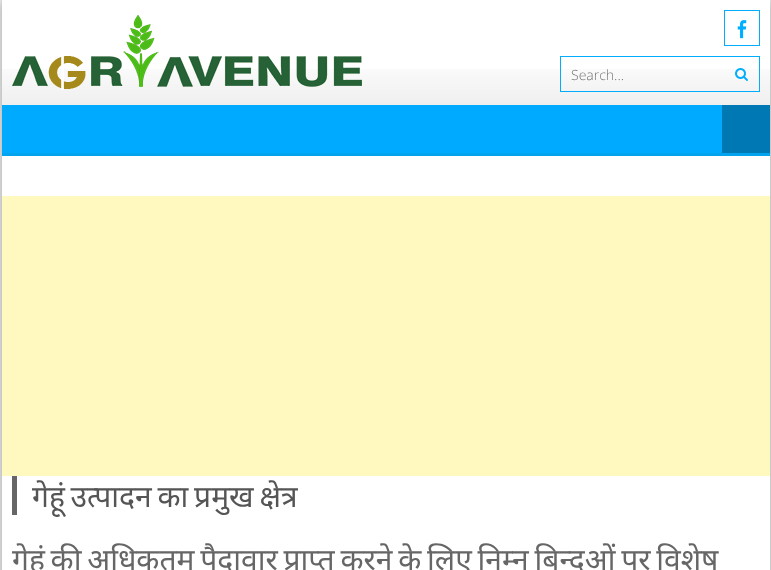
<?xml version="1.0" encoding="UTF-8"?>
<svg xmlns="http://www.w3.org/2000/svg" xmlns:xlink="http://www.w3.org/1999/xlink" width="771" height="570">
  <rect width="100%" height="100%" fill="#f2f3f4" />
  <rect x="2" width="768" height="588" fill="#999999" filter="blur(6px)" />
  <rect x="2" width="768" height="570" fill="#ffffff" />
  <image x="2" y="69" width="768" height="36" xlink:href="image1.png" />
  <image x="12" y="15" width="350" height="75" xlink:href="image2.png" />
  <rect x="724.5" y="10.5" width="35" height="35" fill="none" stroke="#01aefd" />
  <image x="737" y="20" width="10" height="19" xlink:href="image3.png" />
  <rect x="560.5" y="56.5" width="199" height="35" fill="none" stroke="#01aefd" />
  <image x="735" y="68" width="13" height="13" xlink:href="image4.png" />
  <rect x="2" y="105" width="720" height="48" fill="#00abff" />
  <rect x="2" y="153" width="768" height="3" fill="#04a3ed" />
  <rect x="722" y="105" width="48" height="48" fill="#0078b3" />
  <rect x="2" y="196" width="768" height="280" fill="#fff9c0" />
  <rect x="12" y="476" width="5" height="39" fill="#666666" />
  <text x="571" y="80" style="font-family: Open Sans; font-size: 14px; font-weight: 300; fill: #757575">Search...</text>
  <text x="32" y="507" word-spacing="-2" style="font-family: Noto Sans; font-size: 30px; fill: #555555">गेहूं उत्पादन का प्रमुख क्षेत्र</text>
  <text x="12" y="570" word-spacing="-2" style="font-family: Noto Sans; font-size: 30px; fill: #666666">गेहूं की अधिकतम पैदावार प्राप्त करने के लिए निम्न बिन्दुओं पर विशेष</text>
</svg>
